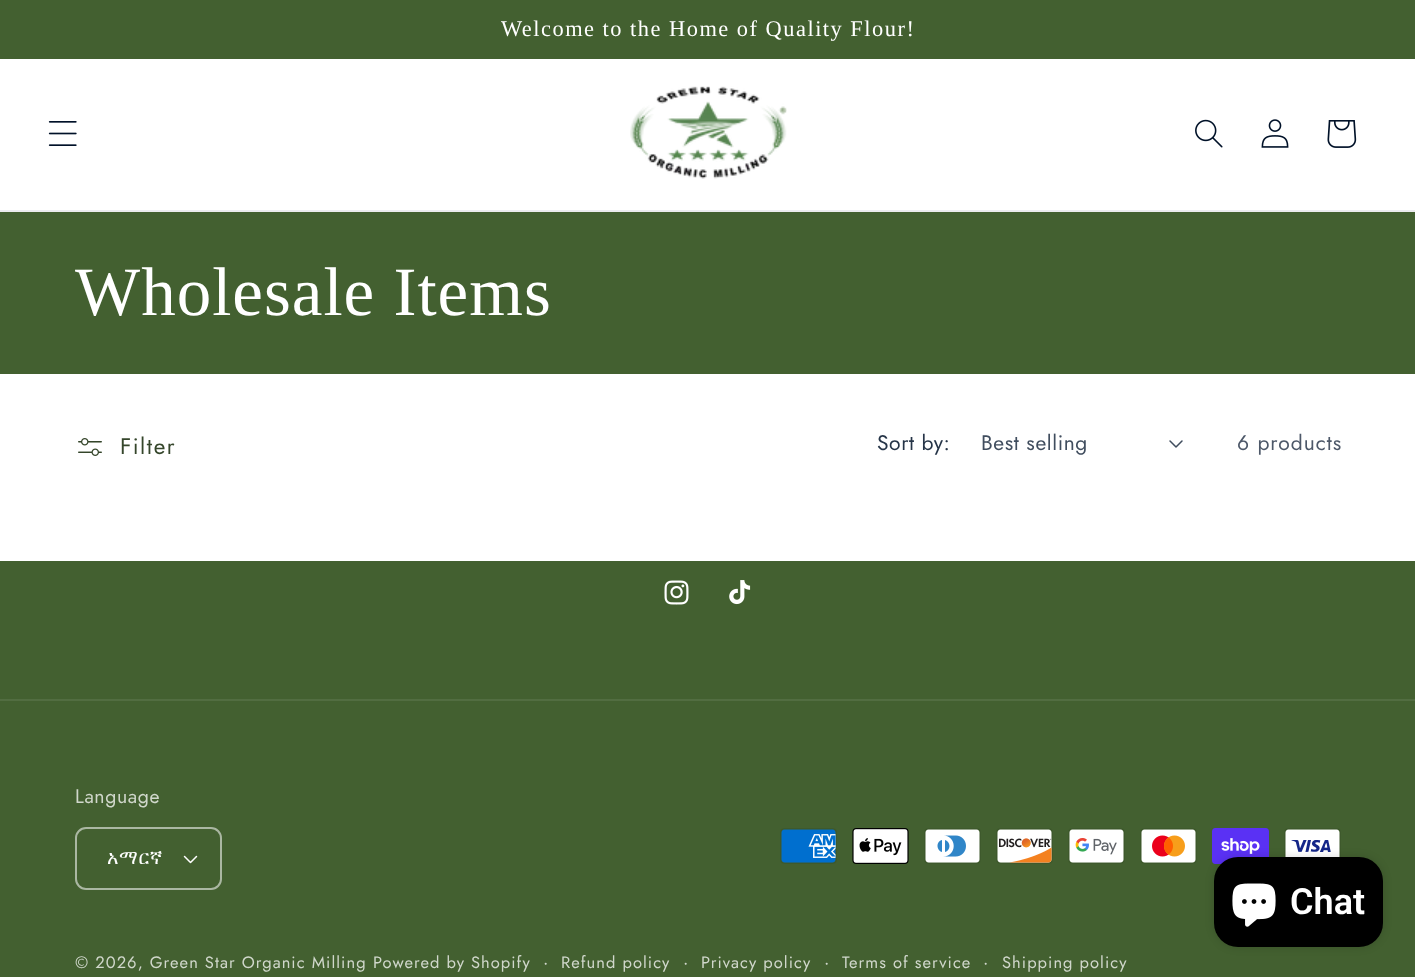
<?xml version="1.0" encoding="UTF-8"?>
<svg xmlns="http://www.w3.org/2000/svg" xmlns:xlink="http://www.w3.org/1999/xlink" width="1415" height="977">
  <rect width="100%" height="100%" fill="#ffffff" />
  <rect width="1415" height="59" fill="#436030" />
  <rect y="210" width="1415" height="2" fill="#ebecee" />
  <image x="48" y="121" width="29" height="25" xlink:href="image1.png" />
  <image x="630" y="86" width="157" height="93" xlink:href="image2.png" />
  <image x="1195" y="119" width="28" height="29" xlink:href="image3.png" />
  <image x="1261" y="119" width="28" height="29" xlink:href="image4.png" />
  <image x="1327" y="120" width="30" height="28" xlink:href="image5.png" />
  <rect y="212" width="1415" height="162" fill="#436030" />
  <image x="78" y="438" width="24" height="18" xlink:href="image6.png" />
  <image x="1169" y="440" width="14" height="8" xlink:href="image7.png" />
  <rect y="561" width="1415" height="416" fill="#436030" />
  <image x="664" y="580" width="25" height="25" xlink:href="image8.png" />
  <image x="729" y="580" width="22" height="25" xlink:href="image9.png" />
  <rect y="699" width="1415" height="2" fill="#526d41" />
  <image x="183" y="855" width="15" height="9" xlink:href="image10.png" />
  <rect x="76" y="828" width="145" height="61" rx="10" fill="none" stroke="#aab7a2" stroke-width="2" />
  <image x="780" y="828" width="57" height="36" xlink:href="image11.png" />
  <image x="852" y="828" width="57" height="36" xlink:href="image12.png" />
  <image x="924" y="828" width="57" height="36" xlink:href="image13.png" />
  <image x="996" y="828" width="57" height="36" xlink:href="image14.png" />
  <image x="1068" y="828" width="57" height="36" xlink:href="image15.png" />
  <image x="1140" y="828" width="57" height="36" xlink:href="image16.png" />
  <image x="1212" y="828" width="57" height="36" xlink:href="image17.png" />
  <image x="1284" y="828" width="57" height="29" xlink:href="image18.png" />
  <rect x="1214" y="857" width="169" height="90" rx="24" fill="#000000" fill-opacity="0.15" filter="blur(4px)" />
  <rect x="1214" y="857" width="169" height="90" rx="24" fill="#000000" />
  <image x="1232" y="883" width="44" height="44" xlink:href="image19.png" />
  <text x="501" y="36" style="font-family: Liberation Serif; font-size: 22.4px; letter-spacing: 1.5px; fill: #ffffff">Welcome to the Home of Quality Flour!</text>
  <text x="75" y="315" style="font-family: Liberation Serif; font-size: 69px; letter-spacing: 1px; fill: #ffffff">Wholesale Items</text>
  <text x="120" y="454" style="font-family: Jost; font-size: 22.5px; letter-spacing: 1.5px; fill: #35462b">Filter</text>
  <text x="877" y="450" style="font-family: Jost; font-size: 21px; letter-spacing: 0.6px; fill: #263548">Sort by:</text>
  <text x="981" y="450" style="font-family: Jost; font-size: 21px; letter-spacing: 0.6px; fill: #404d5e">Best selling</text>
  <text x="1237" y="450" style="font-family: Jost; font-size: 21px; letter-spacing: 1px; fill: #4d5869">6 products</text>
  <text x="75" y="803" style="font-family: Jost; font-size: 19.5px; letter-spacing: 0.6px; fill: #d0d7cb">Language</text>
  <text x="107" y="864" style="font-family: FreeSerif; font-size: 19.5px; letter-spacing: 0.6px; fill: #ffffff">አማርኛ</text>
  <text x="75" y="968" style="font-family: Jost; font-size: 16.5px; letter-spacing: 1.05px; fill: #d0d7cb">© 2026, Green Star Organic Milling</text>
  <text x="373" y="968" style="font-family: Jost; font-size: 16.5px; letter-spacing: 1.05px; fill: #d0d7cb">Powered by Shopify</text>
  <text x="543" y="968" style="font-family: Jost; font-size: 18px; letter-spacing: 1.05px; fill: #d0d7cb">·</text>
  <text x="561" y="968" style="font-family: Jost; font-size: 16.5px; letter-spacing: 1.05px; fill: #d0d7cb">Refund policy</text>
  <text x="683" y="968" style="font-family: Jost; font-size: 18px; letter-spacing: 1.05px; fill: #d0d7cb">·</text>
  <text x="701" y="968" style="font-family: Jost; font-size: 16.5px; letter-spacing: 1.05px; fill: #d0d7cb">Privacy policy</text>
  <text x="824" y="968" style="font-family: Jost; font-size: 18px; letter-spacing: 1.05px; fill: #d0d7cb">·</text>
  <text x="842" y="968" style="font-family: Jost; font-size: 16.5px; letter-spacing: 1.05px; fill: #d0d7cb">Terms of service</text>
  <text x="983" y="968" style="font-family: Jost; font-size: 18px; letter-spacing: 1.05px; fill: #d0d7cb">·</text>
  <text x="1002" y="968" style="font-family: Jost; font-size: 16.5px; letter-spacing: 1.05px; fill: #d0d7cb">Shipping policy</text>
  <text x="1290" y="914" style="font-family: Roboto; font-size: 36px; font-weight: 600; fill: #ffffff">Chat</text>
</svg>
